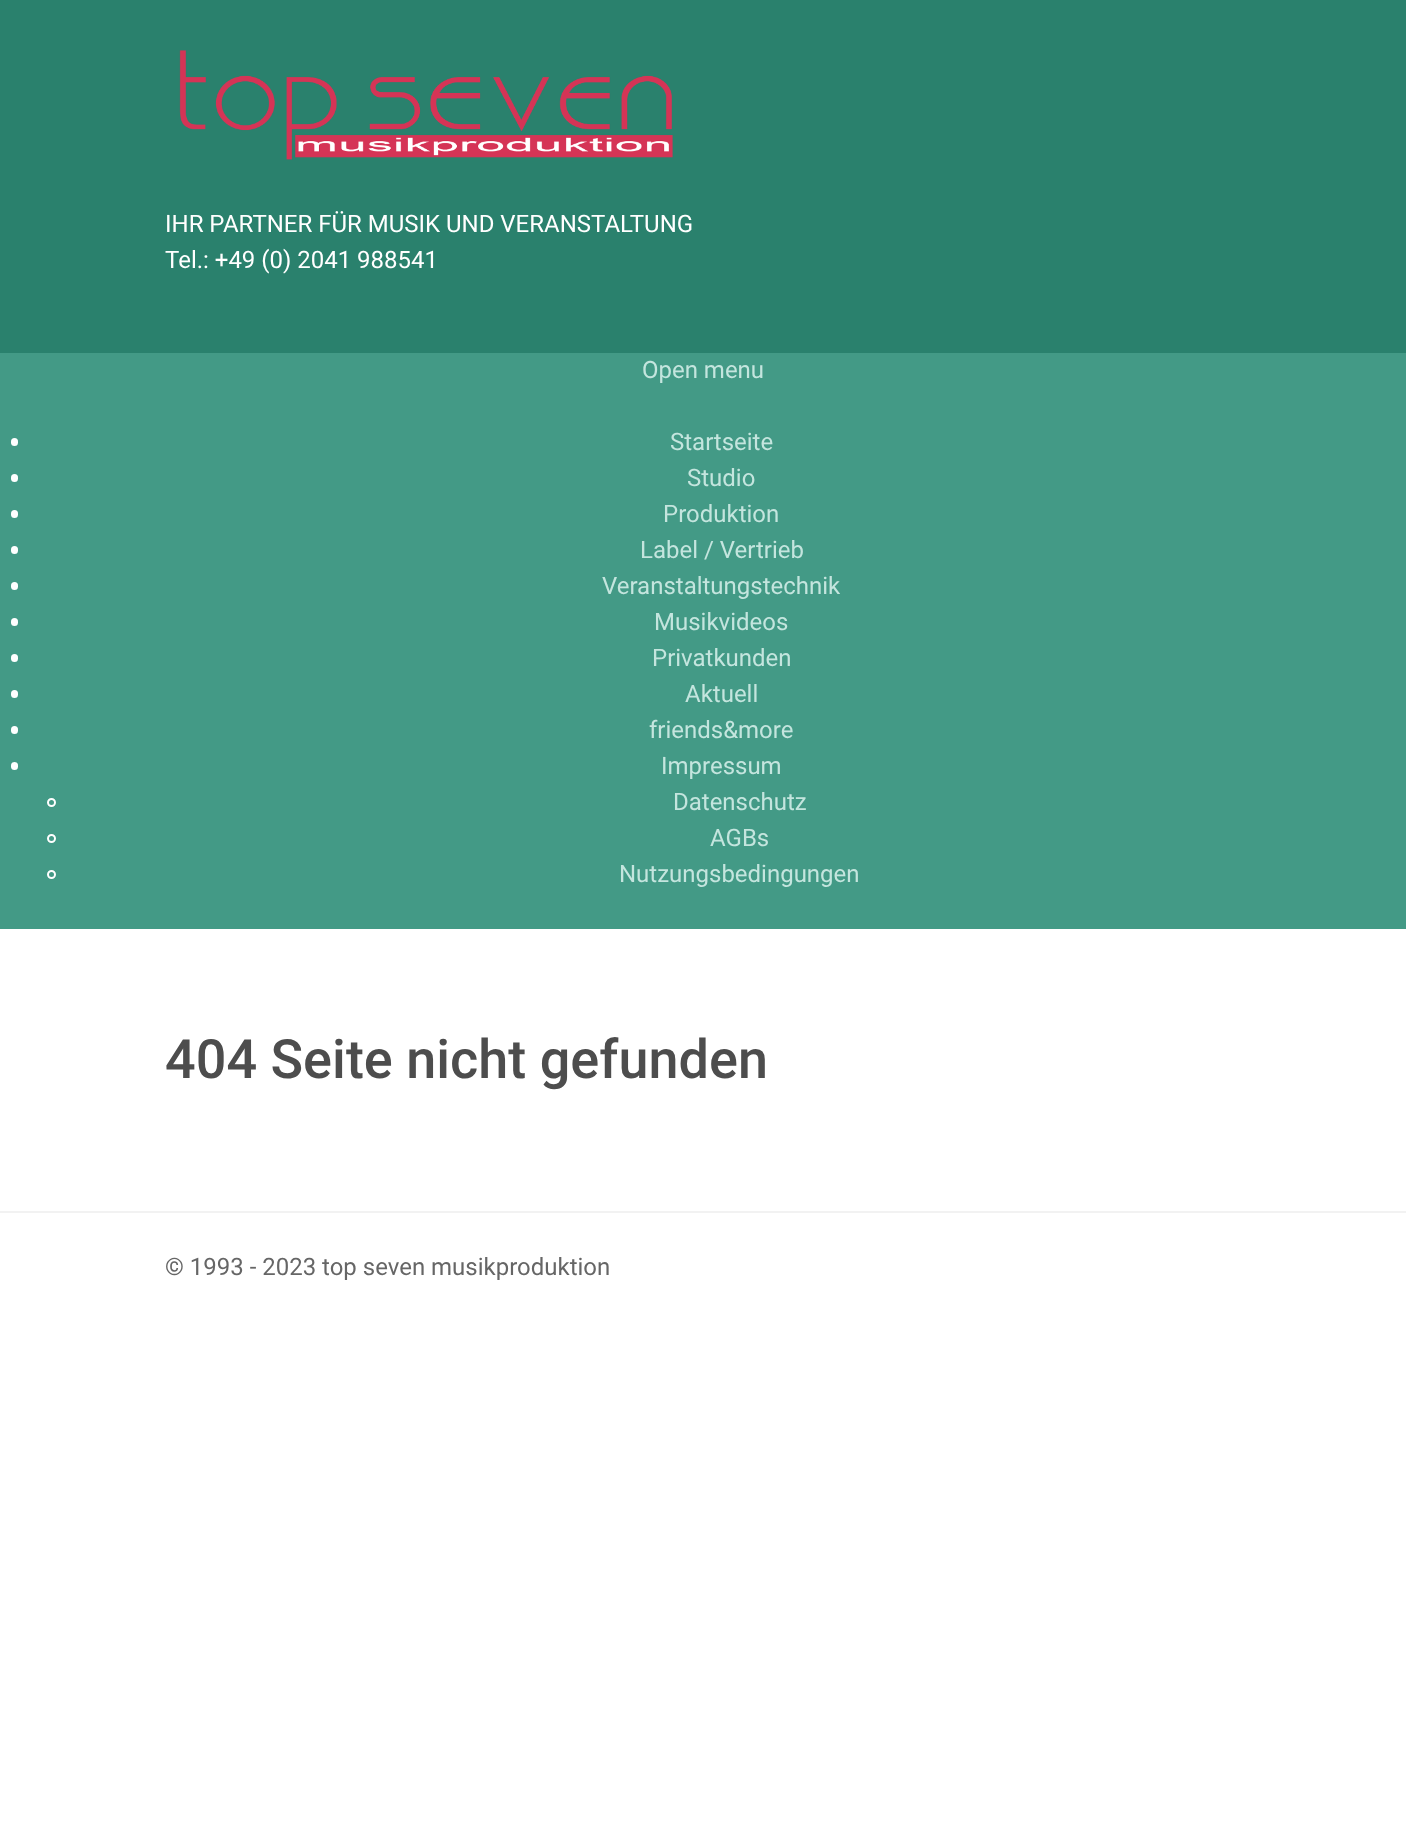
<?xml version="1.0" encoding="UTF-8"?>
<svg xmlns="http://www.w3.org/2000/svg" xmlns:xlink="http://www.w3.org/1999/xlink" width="1406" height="1848">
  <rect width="100%" height="100%" fill="#ffffff" />
  <rect width="1406" height="353" fill="#2a816d" />
  <image x="179" y="50" width="494" height="110" xlink:href="image1.png" />
  <rect y="353" width="1406" height="576" fill="#439a86" />
  <rect x="11" y="438" width="7" height="8" rx="3.5" fill="#ffffff" />
  <rect x="11" y="474" width="7" height="8" rx="3.5" fill="#ffffff" />
  <rect x="11" y="510" width="7" height="8" rx="3.5" fill="#ffffff" />
  <rect x="11" y="546" width="7" height="8" rx="3.5" fill="#ffffff" />
  <rect x="11" y="582" width="7" height="8" rx="3.5" fill="#ffffff" />
  <rect x="11" y="618" width="7" height="8" rx="3.5" fill="#ffffff" />
  <rect x="11" y="654" width="7" height="8" rx="3.5" fill="#ffffff" />
  <rect x="11" y="690" width="7" height="8" rx="3.5" fill="#ffffff" />
  <rect x="11" y="726" width="7" height="8" rx="3.5" fill="#ffffff" />
  <rect x="11" y="762" width="7" height="8" rx="3.5" fill="#ffffff" />
  <circle cx="51.5" cy="802.5" r="3.5" fill="none" stroke="#ffffff" stroke-width="2" />
  <circle cx="51.5" cy="838.5" r="3.5" fill="none" stroke="#ffffff" stroke-width="2" />
  <circle cx="51.5" cy="874.5" r="3.5" fill="none" stroke="#ffffff" stroke-width="2" />
  <rect y="1211" width="1406" height="2" fill="#f2f2f2" />
  <text x="165" y="232" style="font-family: Roboto; font-size: 24px; fill: #ffffff">IHR PARTNER FÜR MUSIK UND VERANSTALTUNG</text>
  <text x="165" y="268" style="font-family: Roboto; font-size: 24px; fill: #ffffff">Tel.: +49 (0) 2041 988541</text>
  <text x="642" y="378" style="font-family: Roboto; font-size: 24px; fill: #c4e5de">Open menu</text>
  <text x="670" y="450" style="font-family: Roboto; font-size: 24px; fill: #c4e5de">Startseite</text>
  <text x="687" y="486" style="font-family: Roboto; font-size: 24px; fill: #c4e5de">Studio</text>
  <text x="663" y="522" style="font-family: Roboto; font-size: 24px; fill: #c4e5de">Produktion</text>
  <text x="640" y="558" style="font-family: Roboto; font-size: 24px; fill: #c4e5de">Label / Vertrieb</text>
  <text x="602" y="594" style="font-family: Roboto; font-size: 24px; fill: #c4e5de">Veranstaltungstechnik</text>
  <text x="654" y="630" style="font-family: Roboto; font-size: 24px; fill: #c4e5de">Musikvideos</text>
  <text x="652" y="666" style="font-family: Roboto; font-size: 24px; fill: #c4e5de">Privatkunden</text>
  <text x="685" y="702" style="font-family: Roboto; font-size: 24px; fill: #c4e5de">Aktuell</text>
  <text x="649" y="738" style="font-family: Roboto; font-size: 24px; fill: #c4e5de">friends&amp;more</text>
  <text x="661" y="774" style="font-family: Roboto; font-size: 24px; fill: #c4e5de">Impressum</text>
  <text x="673" y="810" style="font-family: Roboto; font-size: 24px; fill: #c4e5de">Datenschutz</text>
  <text x="710" y="846" style="font-family: Roboto; font-size: 24px; fill: #c4e5de">AGBs</text>
  <text x="619" y="882" style="font-family: Roboto; font-size: 24px; fill: #c4e5de">Nutzungsbedingungen</text>
  <text x="165" y="1078" style="font-family: Roboto; font-size: 54px; font-weight: 500; fill: #4d4d4d">404 Seite nicht gefunden</text>
  <text x="165" y="1275" style="font-family: Roboto; font-size: 24px; fill: #666666">© 1993 - 2023 top seven musikproduktion</text>
</svg>
